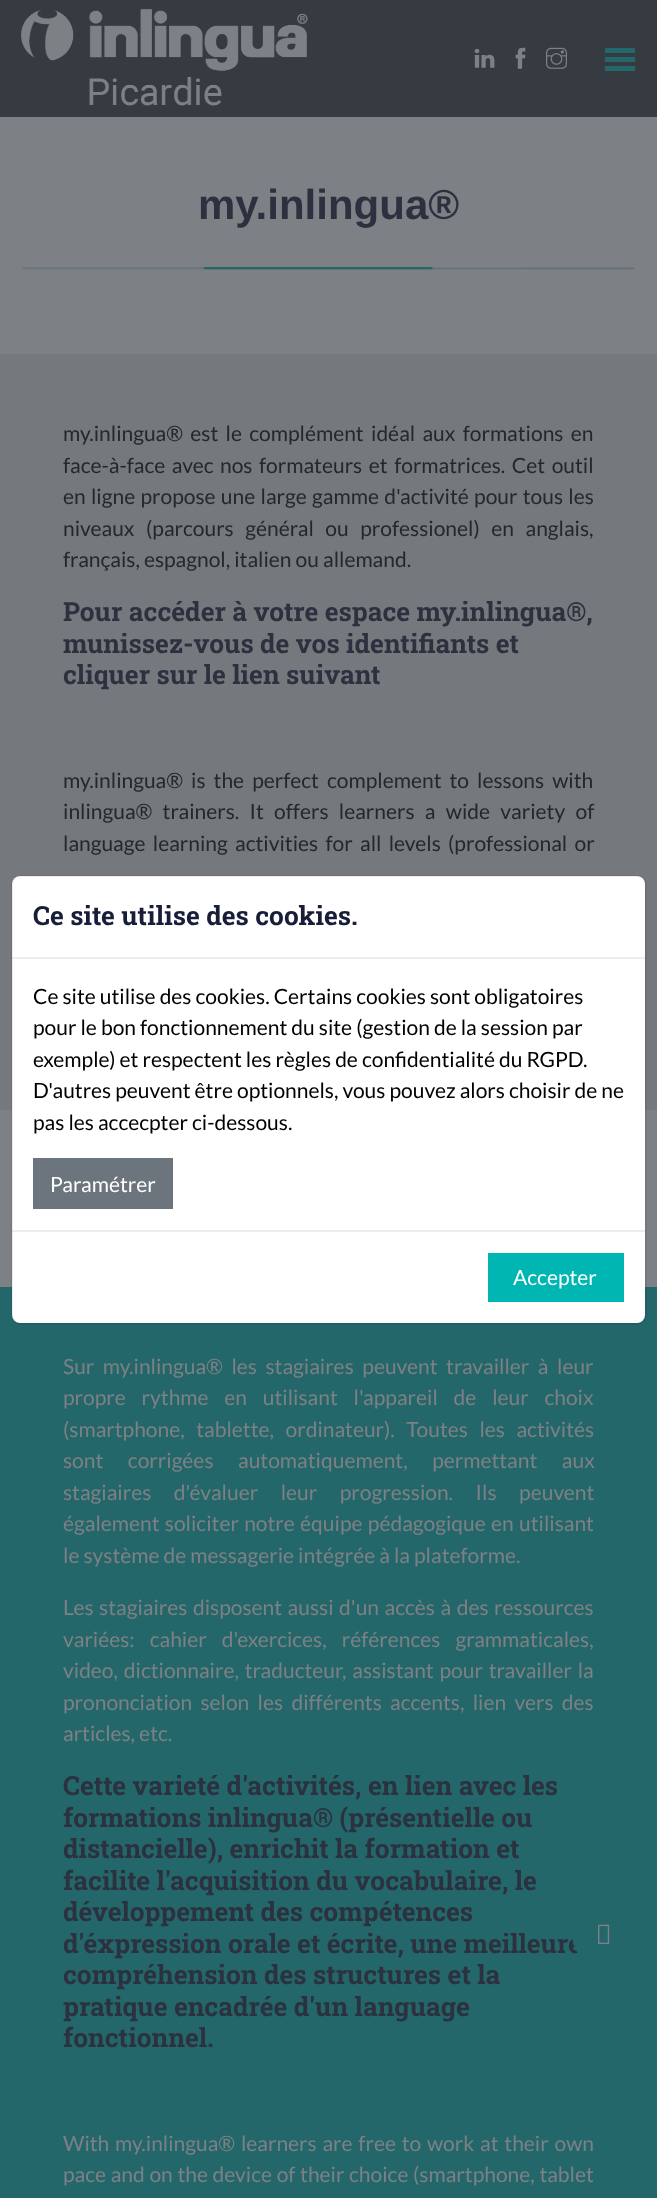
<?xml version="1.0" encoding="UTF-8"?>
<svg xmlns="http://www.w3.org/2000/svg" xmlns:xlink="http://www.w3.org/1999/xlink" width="657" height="2198">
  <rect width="100%" height="100%" fill="#7d8085" />
  <rect width="657" height="117" fill="#363b42" />
  <image x="21" y="8" width="287" height="98" xlink:href="image1.png" />
  <image x="474" y="48" width="21" height="20" xlink:href="image2.png" />
  <image x="515" y="47" width="11" height="22" xlink:href="image3.png" />
  <image x="546" y="47" width="21" height="22" xlink:href="image4.png" />
  <rect x="605" y="57" width="30" height="5" fill="#24676a" />
  <rect x="605" y="48" width="30" height="5" fill="#24676a" />
  <rect x="605" y="66" width="30" height="5" fill="#24676a" />
  <image x="22" y="267" width="613" height="3" xlink:href="image5.png" />
  <rect y="354" width="657" height="756" fill="#75787d" />
  <rect y="1287" width="657" height="911" fill="#24676a" />
  <rect x="12" y="876" width="633" height="447" rx="8" fill="#ffffff" />
  <rect x="12" y="876" width="634" height="448" rx="8" fill="none" stroke="#000000" stroke-opacity="0.07" stroke-width="2" />
  <rect x="12" y="957" width="633" height="2" fill="#000000" fill-opacity="0.07" />
  <rect x="33" y="1158" width="140" height="51" fill="#6c757d" />
  <rect x="12" y="1230" width="633" height="2" fill="#000000" fill-opacity="0.07" />
  <rect x="488" y="1253" width="136" height="49" fill="#00b6b3" />
  <text x="198" y="219" style="font-family: Liberation Sans; font-size: 42px; font-weight: bold; fill: #2c313f">my.inlingua®</text>
  <text x="63" y="441" word-spacing="3.25" style="font-family: Lato; font-size: 21px; fill: #24272c">my.inlingua® est le complément idéal aux formations en</text>
  <text x="63" y="473" word-spacing="2.5" style="font-family: Lato; font-size: 21px; fill: #24272c">face-à-face avec nos formateurs et formatrices. Cet outil</text>
  <text x="63" y="504" word-spacing="1.25" style="font-family: Lato; font-size: 21px; fill: #24272c">en ligne propose une large gamme d'activité pour tous les</text>
  <text x="63" y="536" word-spacing="7.5" style="font-family: Lato; font-size: 21px; fill: #24272c">niveaux (parcours général ou professionel) en anglais,</text>
  <text x="63" y="567" style="font-family: Lato; font-size: 21px; fill: #24272c">français, espagnol, italien ou allemand.</text>
  <text x="63" y="621" style="font-family: Roboto Slab; font-size: 26.25px; font-weight: bold; fill: #2c313f">Pour accéder à votre espace my.inlingua®,</text>
  <text x="63" y="653" style="font-family: Roboto Slab; font-size: 26.25px; font-weight: bold; fill: #2c313f">munissez-vous de vos identifiants et</text>
  <text x="63" y="684" style="font-family: Roboto Slab; font-size: 26.25px; font-weight: bold; fill: #2c313f">cliquer sur le lien suivant</text>
  <text x="63" y="788" word-spacing="4" style="font-family: Lato; font-size: 21px; fill: #24272c">my.inlingua® is the perfect complement to lessons with</text>
  <text x="63" y="819" word-spacing="6.25" style="font-family: Lato; font-size: 21px; fill: #24272c">inlingua® trainers. It offers learners a wide variety of</text>
  <text x="63" y="851" word-spacing="3.25" style="font-family: Lato; font-size: 21px; fill: #24272c">language learning activities for all levels (professional or</text>
  <text x="63" y="1374" word-spacing="4.5" style="font-family: Lato; font-size: 21px; fill: #7d8085">Sur my.inlingua® les stagiaires peuvent travailler à leur</text>
  <text x="63" y="1405" word-spacing="11.75" style="font-family: Lato; font-size: 21px; fill: #7d8085">propre rythme en utilisant l'appareil de leur choix</text>
  <text x="63" y="1437" word-spacing="7.5" style="font-family: Lato; font-size: 21px; fill: #7d8085">(smartphone, tablette, ordinateur). Toutes les activités</text>
  <text x="63" y="1468" word-spacing="20.5" style="font-family: Lato; font-size: 21px; fill: #7d8085">sont corrigées automatiquement, permettant aux</text>
  <text x="63" y="1500" word-spacing="18.5" style="font-family: Lato; font-size: 21px; fill: #7d8085">stagiaires d'évaluer leur progression. Ils peuvent</text>
  <text x="63" y="1531" word-spacing="1.25" style="font-family: Lato; font-size: 21px; fill: #7d8085">également soliciter notre équipe pédagogique en utilisant</text>
  <text x="63" y="1563" style="font-family: Lato; font-size: 21px; fill: #7d8085">le système de messagerie intégrée à la plateforme.</text>
  <text x="63" y="1615" word-spacing="1.5" style="font-family: Lato; font-size: 21px; fill: #7d8085">Les stagiaires disposent aussi d'un accès à des ressources</text>
  <text x="63" y="1647" word-spacing="11" style="font-family: Lato; font-size: 21px; fill: #7d8085">variées: cahier d'exercices, références grammaticales,</text>
  <text x="63" y="1678" word-spacing="1.75" style="font-family: Lato; font-size: 21px; fill: #7d8085">video, dictionnaire, traducteur, assistant pour travailler la</text>
  <text x="63" y="1710" word-spacing="4.25" style="font-family: Lato; font-size: 21px; fill: #7d8085">prononciation selon les différents accents, lien vers des</text>
  <text x="63" y="1741" style="font-family: Lato; font-size: 21px; fill: #7d8085">articles, etc.</text>
  <text x="63" y="1795" style="font-family: Roboto Slab; font-size: 26.25px; font-weight: bold; fill: #2c313f">Cette varieté d'activités, en lien avec les</text>
  <text x="63" y="1827" style="font-family: Roboto Slab; font-size: 26.25px; font-weight: bold; fill: #2c313f">formations inlingua® (présentielle ou</text>
  <text x="63" y="1858" style="font-family: Roboto Slab; font-size: 26.25px; font-weight: bold; fill: #2c313f">distancielle), enrichit la formation et</text>
  <text x="63" y="1890" style="font-family: Roboto Slab; font-size: 26.25px; font-weight: bold; fill: #2c313f">facilite l'acquisition du vocabulaire, le</text>
  <text x="63" y="1921" style="font-family: Roboto Slab; font-size: 26.25px; font-weight: bold; fill: #2c313f">développement des compétences</text>
  <text x="63" y="1953" style="font-family: Roboto Slab; font-size: 26.25px; font-weight: bold; fill: #2c313f">d'éxpression orale et écrite, une meilleure</text>
  <text x="63" y="1984" style="font-family: Roboto Slab; font-size: 26.25px; font-weight: bold; fill: #2c313f">compréhension des structures et la</text>
  <text x="63" y="2016" style="font-family: Roboto Slab; font-size: 26.25px; font-weight: bold; fill: #2c313f">pratique encadrée d'un language</text>
  <text x="63" y="2047" style="font-family: Roboto Slab; font-size: 26.25px; font-weight: bold; fill: #2c313f">fonctionnel.</text>
  <text x="63" y="2151" word-spacing="1.75" style="font-family: Lato; font-size: 21px; fill: #7d8085">With my.inlingua® learners are free to work at their own</text>
  <text x="63" y="2182" word-spacing="0.6" style="font-family: Lato; font-size: 21px; fill: #7d8085">pace and on the device of their choice (smartphone, tablet</text>
  <text x="33" y="925" style="font-family: Roboto Slab; font-size: 26.25px; font-weight: bold; fill: #181d38">Ce site utilise des cookies.</text>
  <text x="33" y="1004" style="font-family: Lato; font-size: 21px; fill: #000000">Ce site utilise des cookies. Certains cookies sont obligatoires</text>
  <text x="33" y="1035" style="font-family: Lato; font-size: 21px; fill: #000000">pour le bon fonctionnement du site (gestion de la session par</text>
  <text x="33" y="1067" style="font-family: Lato; font-size: 21px; fill: #000000">exemple) et respectent les règles de confidentialité du RGPD.</text>
  <text x="33" y="1098" style="font-family: Lato; font-size: 21px; fill: #000000">D'autres peuvent être optionnels, vous pouvez alors choisir de ne</text>
  <text x="33" y="1130" style="font-family: Lato; font-size: 21px; fill: #000000">pas les accecpter ci-dessous.</text>
  <text x="50" y="1192" style="font-family: Lato; font-size: 21px; fill: #ffffff">Paramétrer</text>
  <text x="513" y="1285" style="font-family: Lato; font-size: 21px; fill: #ffffff">Accepter</text>
  <circle cx="609.5" cy="1933.5" r="37.5" fill="#24676a" />
  <image x="598" y="1924" width="12" height="20" xlink:href="image6.png" />
</svg>
